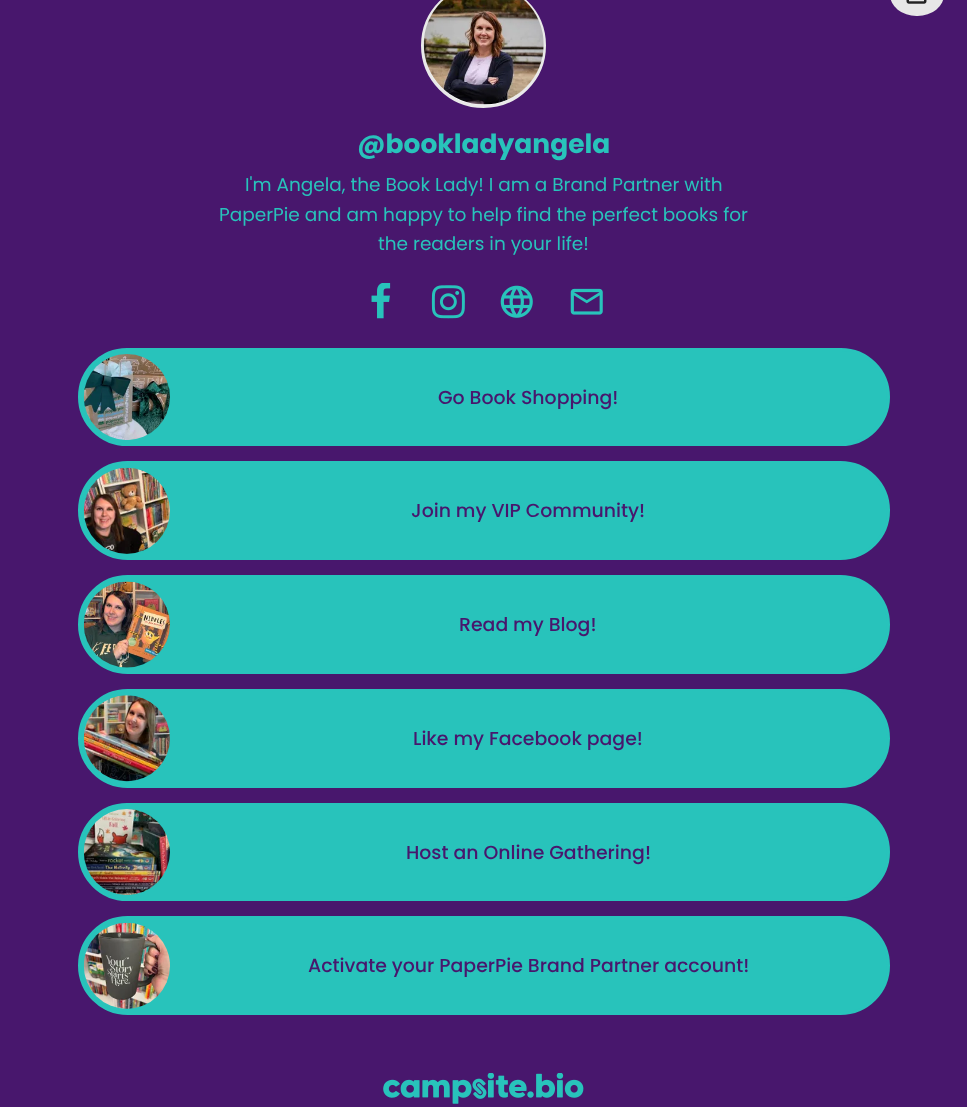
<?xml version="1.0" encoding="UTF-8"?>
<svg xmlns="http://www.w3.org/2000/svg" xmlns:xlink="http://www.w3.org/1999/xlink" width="967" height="1107">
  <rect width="100%" height="100%" fill="#48176d" />
  <rect x="890" y="-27" width="54" height="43" rx="26.5" fill="#e7e7e7" />
  <image x="906" y="0" width="21" height="4" xlink:href="image1.png" />
  <circle cx="483.5" cy="45.5" r="61" fill="#ffffff" stroke="#e9e9e9" stroke-width="3" />
  <image x="423" y="0" width="121" height="105" xlink:href="image2.png" />
  <image x="371" y="283" width="20" height="36" xlink:href="image3.png" />
  <image x="431" y="285" width="34" height="34" xlink:href="image4.png" />
  <image x="500" y="285" width="33" height="33" xlink:href="image5.png" />
  <image x="570" y="288" width="33" height="27" xlink:href="image6.png" />
  <rect x="79.5" y="349.5" width="809" height="95" rx="47.5" fill="#28c3bb" stroke="#28c3bb" stroke-width="3" />
  <image x="83" y="354" width="87" height="86" xlink:href="image7.png" />
  <rect x="79.5" y="462.5" width="809" height="96" rx="48" fill="#28c3bb" stroke="#28c3bb" stroke-width="3" />
  <image x="83" y="467" width="87" height="87" xlink:href="image8.png" />
  <rect x="79.5" y="576.5" width="809" height="96" rx="48" fill="#28c3bb" stroke="#28c3bb" stroke-width="3" />
  <image x="83" y="581" width="87" height="87" xlink:href="image9.png" />
  <rect x="79.5" y="690.5" width="809" height="96" rx="48" fill="#28c3bb" stroke="#28c3bb" stroke-width="3" />
  <image x="83" y="695" width="87" height="87" xlink:href="image10.png" />
  <rect x="79.5" y="804.5" width="809" height="95" rx="47.5" fill="#28c3bb" stroke="#28c3bb" stroke-width="3" />
  <image x="83" y="809" width="87" height="86" xlink:href="image11.png" />
  <rect x="79.5" y="917.5" width="809" height="96" rx="48" fill="#28c3bb" stroke="#28c3bb" stroke-width="3" />
  <image x="83" y="922" width="87" height="87" xlink:href="image12.png" />
  <image x="383" y="1073" width="201" height="31" xlink:href="image13.png" />
  <text x="357" y="153" style="font-family: Poppins; font-size: 26.5px; font-weight: bold; fill: #28c3bb">@bookladyangela</text>
  <text x="245" y="191" style="font-family: Poppins; font-size: 18.5px; fill: #28c3bb">I'm Angela, the Book Lady! I am a Brand Partner with</text>
  <text x="219" y="221" style="font-family: Poppins; font-size: 18.5px; fill: #28c3bb">PaperPie and am happy to help find the perfect books for</text>
  <text x="378" y="250" style="font-family: Poppins; font-size: 18.5px; fill: #28c3bb">the readers in your life!</text>
  <text x="438" y="404" style="font-family: Poppins; font-size: 18.9px; font-weight: 500; fill: #48176d">Go Book Shopping!</text>
  <text x="411" y="517" style="font-family: Poppins; font-size: 18.9px; font-weight: 500; fill: #48176d">Join my VIP Community!</text>
  <text x="459" y="631" style="font-family: Poppins; font-size: 18.9px; font-weight: 500; fill: #48176d">Read my Blog!</text>
  <text x="413" y="745" style="font-family: Poppins; font-size: 18.9px; font-weight: 500; fill: #48176d">Like my Facebook page!</text>
  <text x="406" y="859" style="font-family: Poppins; font-size: 18.9px; font-weight: 500; fill: #48176d">Host an Online Gathering!</text>
  <text x="308" y="972" style="font-family: Poppins; font-size: 18.9px; font-weight: 500; fill: #48176d">Activate your PaperPie Brand Partner account!</text>
</svg>
